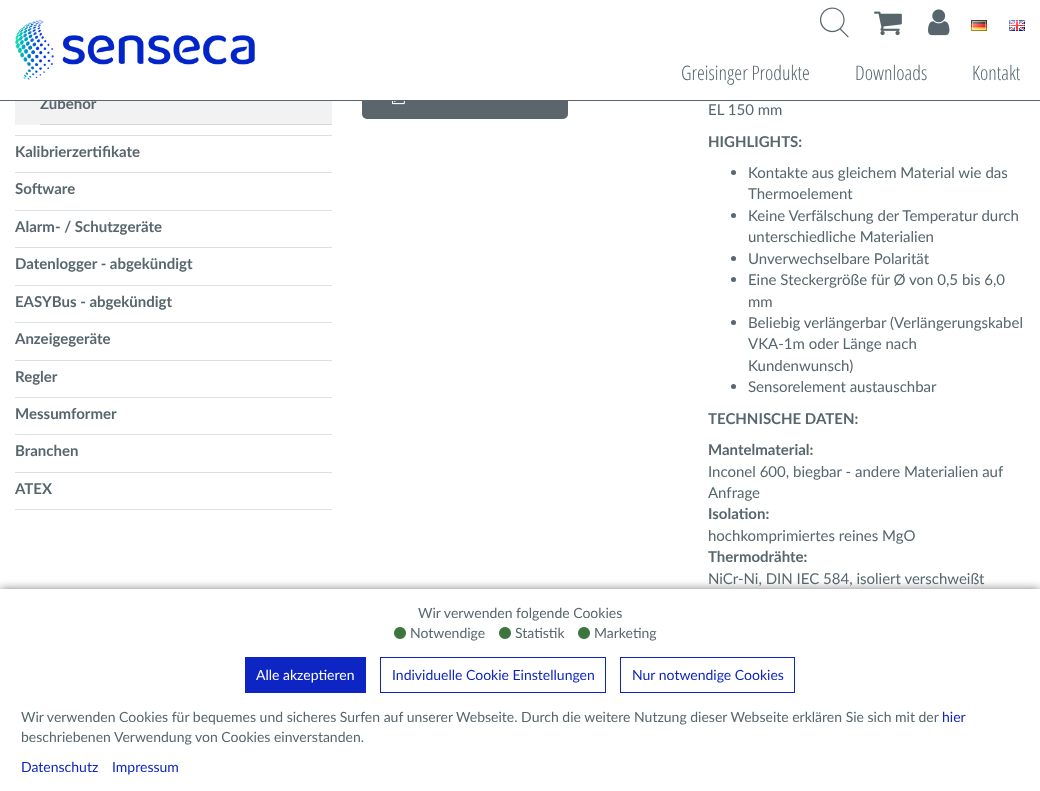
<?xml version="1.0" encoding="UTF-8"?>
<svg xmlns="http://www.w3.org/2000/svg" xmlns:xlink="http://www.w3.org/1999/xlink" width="1040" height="791">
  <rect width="100%" height="100%" fill="#ffffff" />
  <image x="820" y="7" width="29" height="31" xlink:href="image2.png" />
  <image x="874" y="11" width="28" height="25" xlink:href="image3.png" />
  <image x="928" y="9" width="22" height="27" xlink:href="image4.png" />
  <image x="971" y="20" width="16" height="11" xlink:href="image5.png" />
  <image x="1009" y="20" width="16" height="11" xlink:href="image6.png" />
  <rect x="15" y="135" width="317" height="1" fill="#dde0e2" />
  <rect x="15" y="101" width="317" height="24" fill="#f2f2f2" />
  <rect x="40" y="124" width="292" height="1" fill="#d3d6d7" />
  <rect x="15" y="172" width="317" height="1" fill="#dde0e2" />
  <rect x="15" y="210" width="317" height="1" fill="#dde0e2" />
  <rect x="15" y="247" width="317" height="1" fill="#dde0e2" />
  <rect x="15" y="285" width="317" height="1" fill="#dde0e2" />
  <rect x="15" y="322" width="317" height="1" fill="#dde0e2" />
  <rect x="15" y="360" width="317" height="1" fill="#dde0e2" />
  <rect x="15" y="397" width="317" height="1" fill="#dde0e2" />
  <rect x="15" y="434" width="317" height="1" fill="#dde0e2" />
  <rect x="15" y="472" width="317" height="1" fill="#dde0e2" />
  <rect x="15" y="509" width="317" height="1" fill="#dde0e2" />
  <rect x="362" y="74" width="206" height="45" rx="5" fill="#5a656c" />
  <image x="392" y="101" width="13" height="4" xlink:href="image7.png" />
  <circle cx="733.5" cy="172.5" r="2.5" fill="#58666d" />
  <circle cx="733.5" cy="215.5" r="2.5" fill="#58666d" />
  <circle cx="733.5" cy="258.5" r="2.5" fill="#58666d" />
  <circle cx="733.5" cy="279.5" r="2.5" fill="#58666d" />
  <circle cx="733.5" cy="322.5" r="2.5" fill="#58666d" />
  <circle cx="733.5" cy="386.5" r="2.5" fill="#58666d" />
  <rect y="589" width="1040" height="202" fill="#000000" fill-opacity="0.5" filter="blur(5px)" />
  <rect y="589" width="1040" height="202" fill="#ffffff" />
  <image x="394" y="627" width="12" height="12" xlink:href="image8.png" />
  <image x="499" y="627" width="12" height="12" xlink:href="image8.png" />
  <image x="578" y="627" width="12" height="12" xlink:href="image8.png" />
  <rect x="245" y="657" width="121" height="36" fill="#0d25c2" />
  <rect x="380.5" y="657.5" width="225" height="35" fill="none" stroke="#0d25c2" />
  <rect x="620.5" y="657.5" width="174" height="35" fill="none" stroke="#0d25c2" />
  <text x="681" y="80" style="font-family: Open Sans Condensed; font-size: 20px; font-weight: 300; fill: #57666d">Greisinger Produkte</text>
  <text x="855" y="80" style="font-family: Open Sans Condensed; font-size: 20px; font-weight: 300; fill: #57666d">Downloads</text>
  <text x="972" y="80" style="font-family: Open Sans Condensed; font-size: 20px; font-weight: 300; fill: #57666d">Kontakt</text>
  <text x="40" y="109" style="font-family: Lato; font-size: 15px; font-weight: bold; fill: #57666d">Zubehör</text>
  <rect x="40" y="74" width="528" height="26" fill="#ffffff" />
  <image x="15" y="20" width="240" height="60" xlink:href="image1.png" />
  <rect y="100" width="1040" height="1" fill="#58666d" />
  <text x="15" y="157" style="font-family: Lato; font-size: 15px; font-weight: bold; fill: #57666d">Kalibrierzertifikate</text>
  <text x="15" y="194" style="font-family: Lato; font-size: 15px; font-weight: bold; fill: #57666d">Software</text>
  <text x="15" y="232" style="font-family: Lato; font-size: 15px; font-weight: bold; fill: #57666d">Alarm- / Schutzgeräte</text>
  <text x="15" y="269" style="font-family: Lato; font-size: 15px; font-weight: bold; fill: #57666d">Datenlogger - abgekündigt</text>
  <text x="15" y="307" style="font-family: Lato; font-size: 15px; font-weight: bold; fill: #57666d">EASYBus - abgekündigt</text>
  <text x="15" y="344" style="font-family: Lato; font-size: 15px; font-weight: bold; fill: #57666d">Anzeigegeräte</text>
  <text x="15" y="382" style="font-family: Lato; font-size: 15px; font-weight: bold; fill: #57666d">Regler</text>
  <text x="15" y="419" style="font-family: Lato; font-size: 15px; font-weight: bold; fill: #57666d">Messumformer</text>
  <text x="15" y="456" style="font-family: Lato; font-size: 15px; font-weight: bold; fill: #57666d">Branchen</text>
  <text x="15" y="494" style="font-family: Lato; font-size: 15px; font-weight: bold; fill: #57666d">ATEX</text>
  <text x="708" y="115" style="font-family: Lato; font-size: 15px; fill: #57666d">EL 150 mm</text>
  <text x="708" y="147" style="font-family: Lato; font-size: 15px; font-weight: bold; fill: #57666d">HIGHLIGHTS:</text>
  <text x="748" y="178" style="font-family: Lato; font-size: 15px; fill: #57666d">Kontakte aus gleichem Material wie das</text>
  <text x="748" y="199" style="font-family: Lato; font-size: 15px; fill: #57666d">Thermoelement</text>
  <text x="748" y="221" style="font-family: Lato; font-size: 15px; fill: #57666d">Keine Verfälschung der Temperatur durch</text>
  <text x="748" y="242" style="font-family: Lato; font-size: 15px; fill: #57666d">unterschiedliche Materialien</text>
  <text x="748" y="264" style="font-family: Lato; font-size: 15px; fill: #57666d">Unverwechselbare Polarität</text>
  <text x="748" y="285" style="font-family: Lato; font-size: 15px; fill: #57666d">Eine Steckergröße für Ø von 0,5 bis 6,0</text>
  <text x="748" y="307" style="font-family: Lato; font-size: 15px; fill: #57666d">mm</text>
  <text x="748" y="328" style="font-family: Lato; font-size: 15px; fill: #57666d">Beliebig verlängerbar (Verlängerungskabel</text>
  <text x="748" y="349" style="font-family: Lato; font-size: 15px; fill: #57666d">VKA-1m oder Länge nach</text>
  <text x="748" y="371" style="font-family: Lato; font-size: 15px; fill: #57666d">Kundenwunsch)</text>
  <text x="748" y="392" style="font-family: Lato; font-size: 15px; fill: #57666d">Sensorelement austauschbar</text>
  <text x="708" y="424" style="font-family: Lato; font-size: 15px; font-weight: bold; fill: #57666d">TECHNISCHE DATEN:</text>
  <text x="708" y="455" style="font-family: Lato; font-size: 15px; font-weight: bold; fill: #57666d">Mantelmaterial:</text>
  <text x="708" y="477" style="font-family: Lato; font-size: 15px; fill: #57666d">Inconel 600, biegbar - andere Materialien auf</text>
  <text x="708" y="498" style="font-family: Lato; font-size: 15px; fill: #57666d">Anfrage</text>
  <text x="708" y="519" style="font-family: Lato; font-size: 15px; font-weight: bold; fill: #57666d">Isolation:</text>
  <text x="708" y="541" style="font-family: Lato; font-size: 15px; fill: #57666d">hochkomprimiertes reines MgO</text>
  <text x="708" y="562" style="font-family: Lato; font-size: 15px; font-weight: bold; fill: #57666d">Thermodrähte:</text>
  <text x="708" y="584" style="font-family: Lato; font-size: 15px; fill: #57666d">NiCr-Ni, DIN IEC 584, isoliert verschweißt</text>
  <text x="418" y="618" style="font-family: Lato; font-size: 14px; fill: #57666d">Wir verwenden folgende Cookies</text>
  <text x="410" y="638" style="font-family: Lato; font-size: 14px; fill: #57666d">Notwendige</text>
  <text x="515" y="638" style="font-family: Lato; font-size: 14px; fill: #57666d">Statistik</text>
  <text x="594" y="638" style="font-family: Lato; font-size: 14px; fill: #57666d">Marketing</text>
  <text x="256" y="680" style="font-family: Lato; font-size: 14px; fill: #ffffff">Alle akzeptieren</text>
  <text x="392" y="680" style="font-family: Lato; font-size: 14px; fill: #0d25c2">Individuelle Cookie Einstellungen</text>
  <text x="632" y="680" style="font-family: Lato; font-size: 14px; fill: #0d25c2">Nur notwendige Cookies</text>
  <text x="21" y="722" style="font-family: Lato; font-size: 14px; fill: #57666d">Wir verwenden Cookies für bequemes und sicheres Surfen auf unserer Webseite. Durch die weitere Nutzung dieser Webseite erklären Sie sich mit der</text>
  <text x="942" y="722" style="font-family: Lato; font-size: 14px; fill: #0d25c2">hier</text>
  <text x="21" y="742" style="font-family: Lato; font-size: 14px; fill: #57666d">beschriebenen Verwendung von Cookies einverstanden.</text>
  <text x="21" y="772" style="font-family: Lato; font-size: 14px; fill: #0d25c2">Datenschutz</text>
  <text x="112" y="772" style="font-family: Lato; font-size: 14px; fill: #0d25c2">Impressum</text>
</svg>
